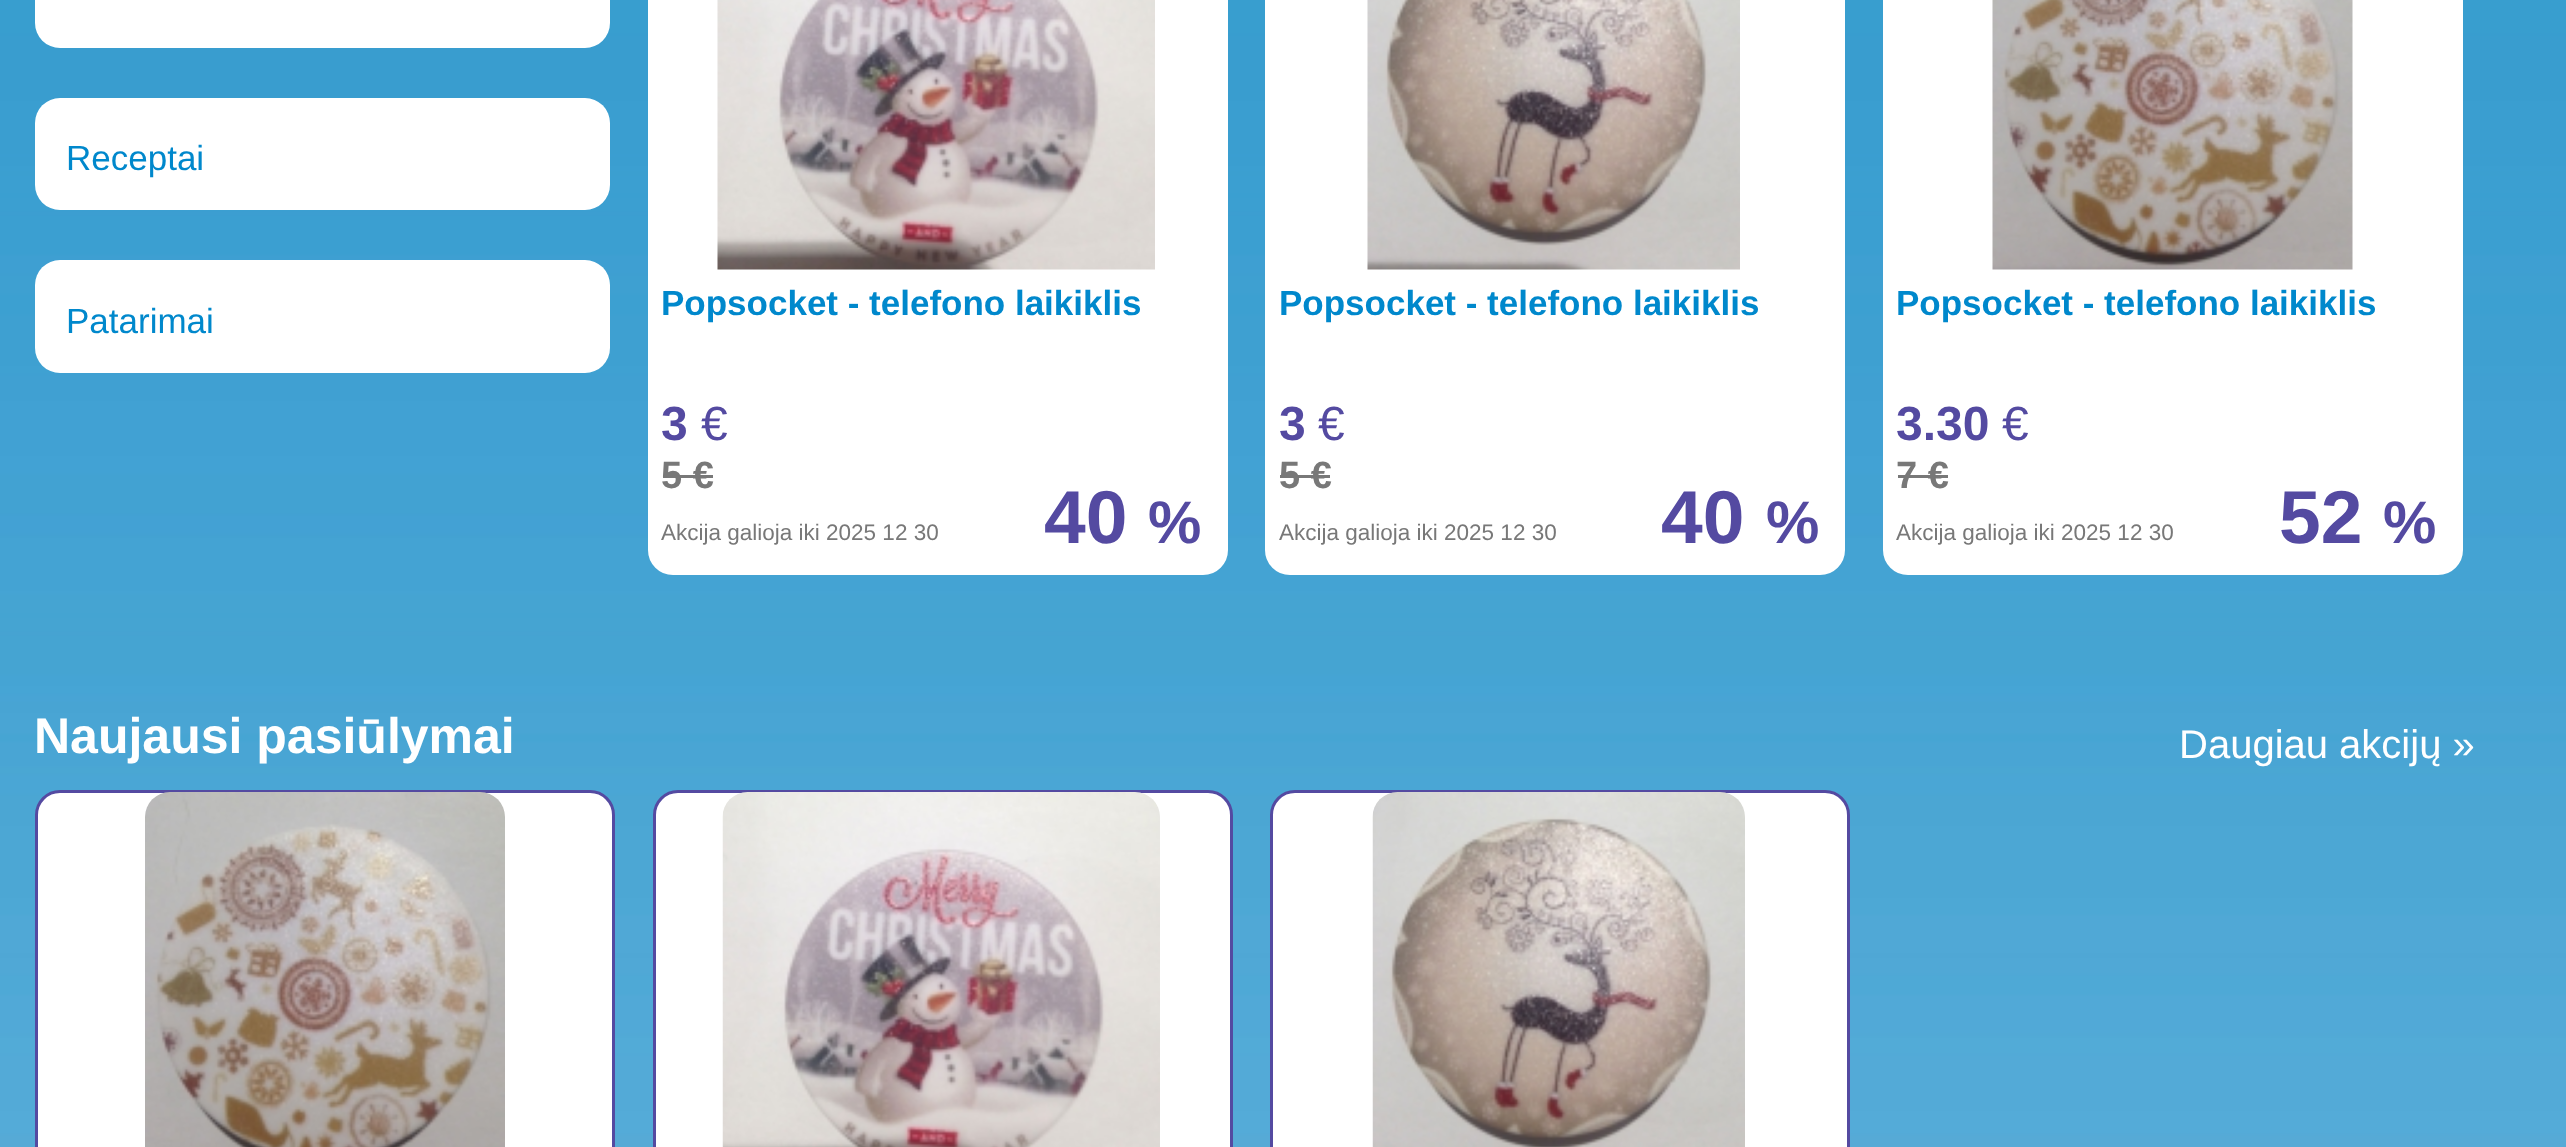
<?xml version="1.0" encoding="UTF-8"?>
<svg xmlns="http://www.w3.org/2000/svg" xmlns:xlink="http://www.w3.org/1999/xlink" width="2566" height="1147">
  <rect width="100%" height="100%" fill="#ffffff" />
  <image x="0" y="0" width="2566" height="1147" xlink:href="image1.png" />
  <rect x="35" y="-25" width="575" height="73" rx="25" fill="#ffffff" />
  <rect x="35" y="98" width="575" height="112" rx="25" fill="#ffffff" />
  <rect x="35" y="260" width="575" height="113" rx="25" fill="#ffffff" />
  <rect x="649.5" y="-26.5" width="577" height="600" rx="23.5" fill="#ffffff" stroke="#ffffff" stroke-width="3" />
  <image x="717" y="0" width="438" height="270" xlink:href="image2.png" />
  <rect x="663" y="475" width="50" height="3" fill="#787878" />
  <rect x="1266.5" y="-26.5" width="577" height="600" rx="23.5" fill="#ffffff" stroke="#ffffff" stroke-width="3" />
  <image x="1367" y="0" width="373" height="270" xlink:href="image3.png" />
  <rect x="1280" y="475" width="50" height="3" fill="#787878" />
  <rect x="1884.5" y="-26.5" width="577" height="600" rx="23.5" fill="#ffffff" stroke="#ffffff" stroke-width="3" />
  <image x="1992" y="0" width="361" height="270" xlink:href="image4.png" />
  <rect x="1898" y="475" width="50" height="3" fill="#787878" />
  <rect x="36.5" y="791.5" width="577" height="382" rx="23.5" fill="#ffffff" stroke="#544aa1" stroke-width="3" />
  <image x="145" y="792" width="360" height="355" xlink:href="image5.png" />
  <rect x="654.5" y="791.5" width="577" height="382" rx="23.5" fill="#ffffff" stroke="#544aa1" stroke-width="3" />
  <image x="722" y="792" width="438" height="355" xlink:href="image6.png" />
  <rect x="1271.5" y="791.5" width="577" height="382" rx="23.5" fill="#ffffff" stroke="#544aa1" stroke-width="3" />
  <image x="1372" y="792" width="373" height="355" xlink:href="image7.png" />
  <text x="66" y="170" style="font-family: Liberation Sans; font-size: 35px; fill: #0088cc">Receptai</text>
  <text x="66" y="333" style="font-family: Liberation Sans; font-size: 35px; fill: #0088cc">Patarimai</text>
  <text x="661" y="315" style="font-family: Liberation Sans; font-size: 35px; font-weight: bold; fill: #0088cc">Popsocket - telefono laikiklis</text>
  <text x="661" y="440" style="font-family: Liberation Sans; font-size: 48px; font-weight: bold; fill: #544aa1">3</text>
  <text x="701" y="440" style="font-family: Liberation Sans; font-size: 48px; fill: #544aa1">€</text>
  <text x="661" y="488" style="font-family: Liberation Sans; font-size: 38px; font-weight: bold; fill: #787878">5 €</text>
  <text x="661" y="540" style="font-family: Liberation Sans; font-size: 22.5px; fill: #787878">Akcija galioja iki 2025 12 30</text>
  <text x="1044" y="543" style="font-family: Liberation Sans; font-size: 75px; font-weight: bold; fill: #544aa1">40</text>
  <text x="1148" y="543" style="font-family: Liberation Sans; font-size: 60px; font-weight: bold; fill: #544aa1">%</text>
  <text x="1279" y="315" style="font-family: Liberation Sans; font-size: 35px; font-weight: bold; fill: #0088cc">Popsocket - telefono laikiklis</text>
  <text x="1279" y="440" style="font-family: Liberation Sans; font-size: 48px; font-weight: bold; fill: #544aa1">3</text>
  <text x="1318" y="440" style="font-family: Liberation Sans; font-size: 48px; fill: #544aa1">€</text>
  <text x="1279" y="488" style="font-family: Liberation Sans; font-size: 38px; font-weight: bold; fill: #787878">5 €</text>
  <text x="1279" y="540" style="font-family: Liberation Sans; font-size: 22.5px; fill: #787878">Akcija galioja iki 2025 12 30</text>
  <text x="1661" y="543" style="font-family: Liberation Sans; font-size: 75px; font-weight: bold; fill: #544aa1">40</text>
  <text x="1766" y="543" style="font-family: Liberation Sans; font-size: 60px; font-weight: bold; fill: #544aa1">%</text>
  <text x="1896" y="315" style="font-family: Liberation Sans; font-size: 35px; font-weight: bold; fill: #0088cc">Popsocket - telefono laikiklis</text>
  <text x="1896" y="440" style="font-family: Liberation Sans; font-size: 48px; font-weight: bold; fill: #544aa1">3.30</text>
  <text x="2002" y="440" style="font-family: Liberation Sans; font-size: 48px; fill: #544aa1">€</text>
  <text x="1896" y="488" style="font-family: Liberation Sans; font-size: 38px; font-weight: bold; fill: #787878">7 €</text>
  <text x="1896" y="540" style="font-family: Liberation Sans; font-size: 22.5px; fill: #787878">Akcija galioja iki 2025 12 30</text>
  <text x="2279" y="543" style="font-family: Liberation Sans; font-size: 75px; font-weight: bold; fill: #544aa1">52</text>
  <text x="2383" y="543" style="font-family: Liberation Sans; font-size: 60px; font-weight: bold; fill: #544aa1">%</text>
  <text x="34" y="753" style="font-family: Liberation Sans; font-size: 50px; font-weight: bold; fill: #ffffff">Naujausi pasiūlymai</text>
  <text x="2179" y="758" style="font-family: Liberation Sans; font-size: 40px; fill: #ffffff">Daugiau akcijų »</text>
</svg>
